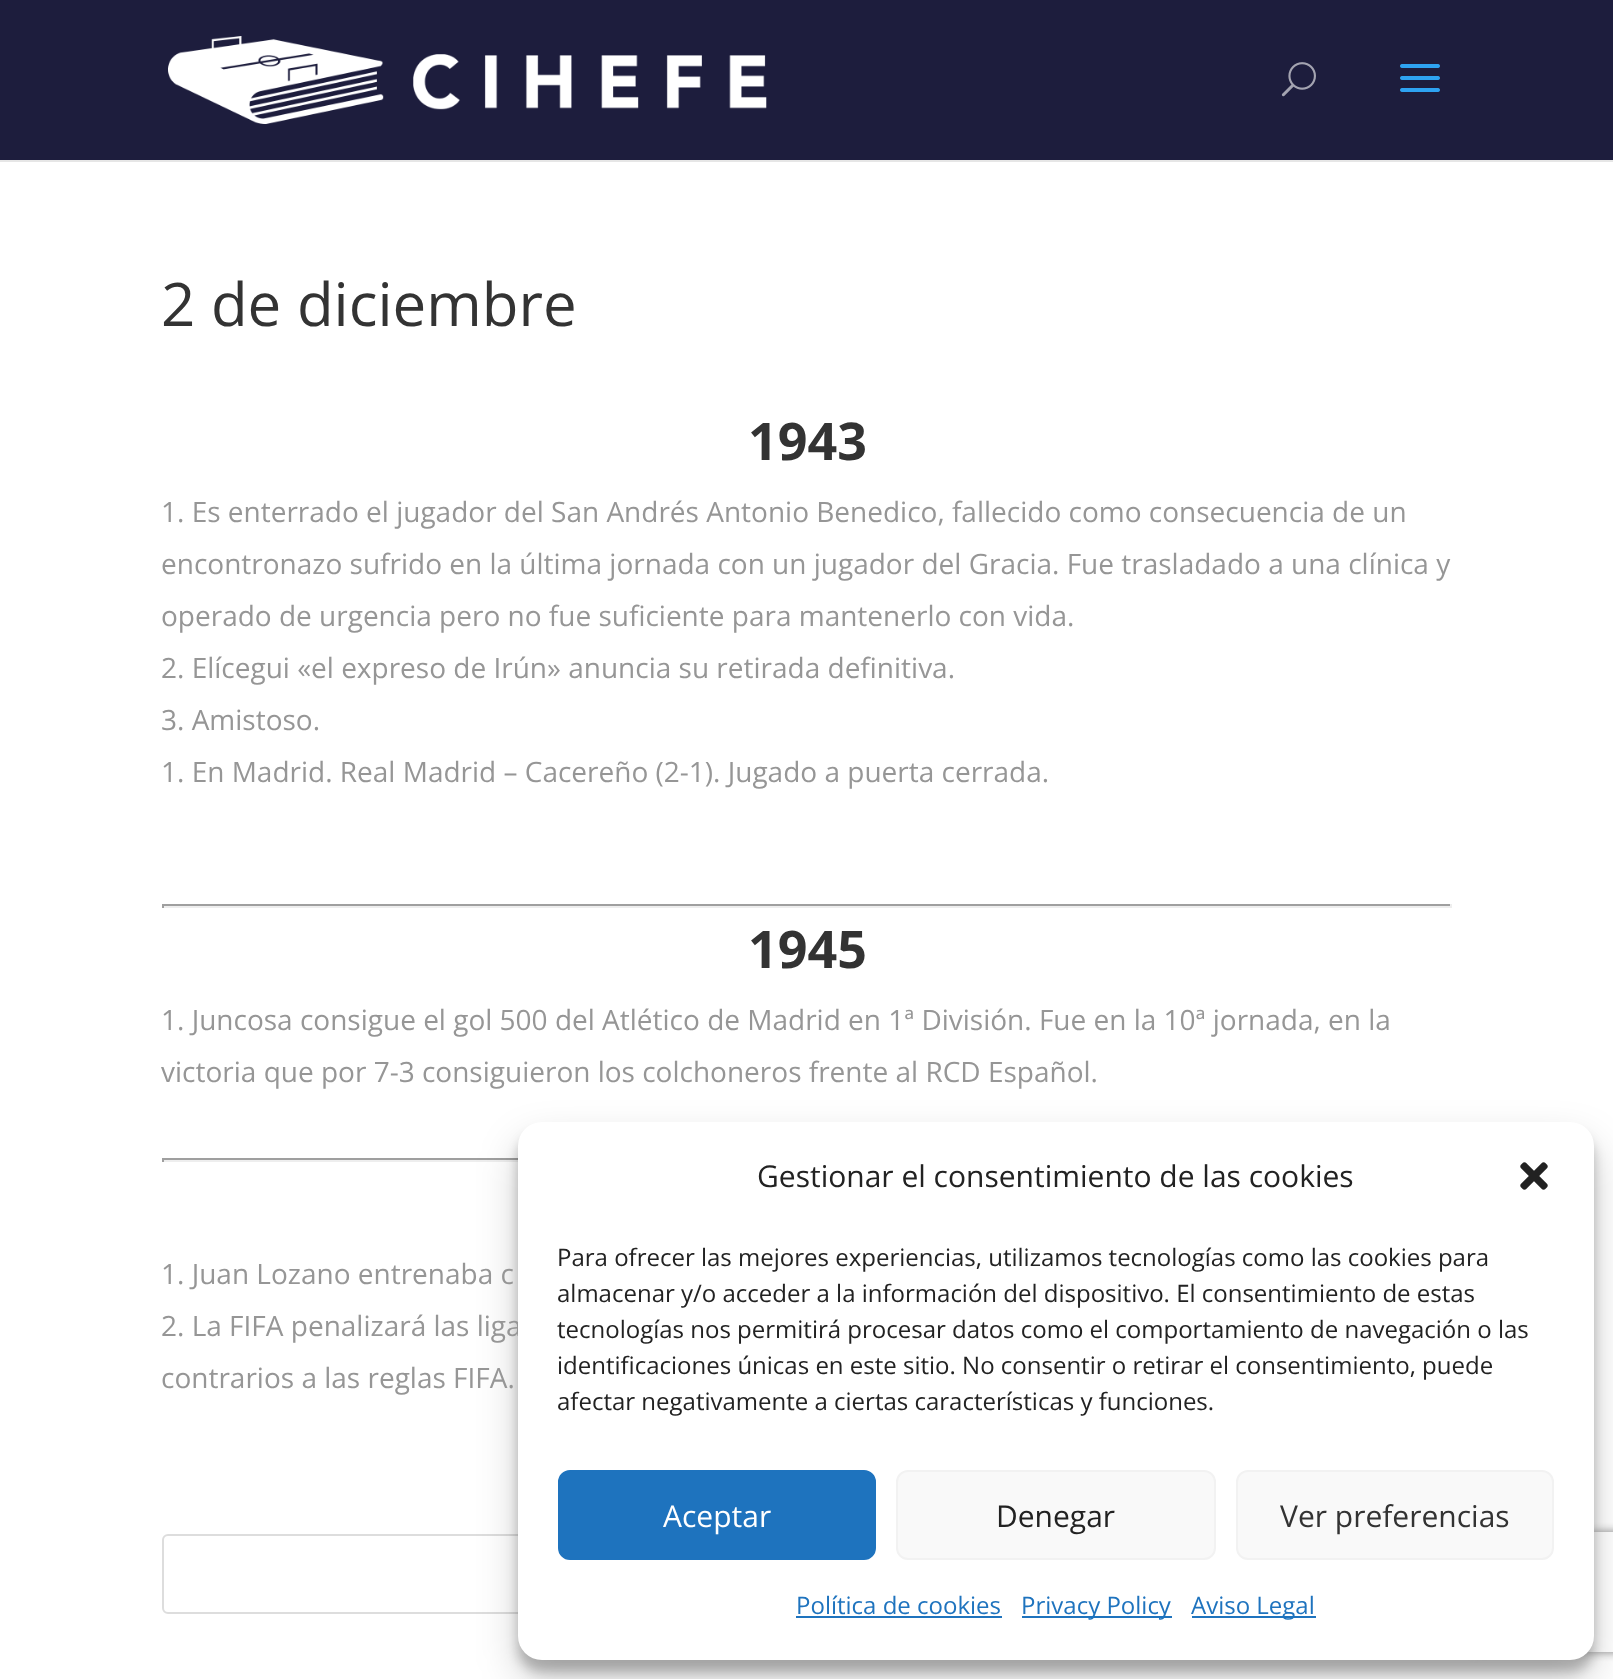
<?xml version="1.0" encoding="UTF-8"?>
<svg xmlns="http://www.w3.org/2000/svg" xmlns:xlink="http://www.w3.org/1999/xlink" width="1613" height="1679">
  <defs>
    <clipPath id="clip1"><path d="M 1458 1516 h 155 v 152 h -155 z m 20 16 h 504 c 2 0 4 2 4 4 v 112 c 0 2 -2 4 -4 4 h -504 c -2 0 -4 -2 -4 -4 v -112 c 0 -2 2 -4 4 -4 z" clip-rule="evenodd" /></clipPath>
  </defs>
  <rect width="100%" height="100%" fill="#ffffff" />
  <rect y="160" width="1613" height="2" fill="#e6e6e6" />
  <rect width="1613" height="160" fill="#1d1d3d" />
  <image x="168" y="36" width="599" height="88" xlink:href="image1.png" />
  <image x="1281" y="62" width="35" height="35" xlink:href="image2.png" />
  <image x="1400" y="64" width="40" height="28" xlink:href="image3.png" />
  <rect x="162" y="904" width="1290" height="2" fill="#9f9f9f" />
  <rect x="1450" y="904" width="2" height="4" fill="#eeeeee" />
  <rect x="162" y="906" width="1290" height="2" fill="#eeeeee" />
  <rect x="162" y="904" width="2" height="4" fill="#9f9f9f" />
  <rect x="162" y="1158" width="356" height="2" fill="#9f9f9f" />
  <rect x="162" y="1160" width="356" height="2" fill="#eeeeee" />
  <rect x="162" y="1158" width="2" height="4" fill="#9f9f9f" />
  <rect x="163" y="1535" width="1288" height="78" rx="5" fill="none" stroke="#dddddd" stroke-width="2" />
  <rect x="518" y="1134" width="1076" height="538" rx="24" fill="#000000" fill-opacity="0.23" filter="blur(6px)" />
  <rect x="518" y="1142" width="1076" height="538" rx="24" fill="#000000" fill-opacity="0.19" filter="blur(20px)" />
  <g clip-path="url(#clip1)">
    <rect x="1474" y="1532" width="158" height="120" rx="4" fill="#808080" filter="blur(5px)" />
  </g>
  <text x="161" y="326" style="font-family: Open Sans; font-size: 60px; fill: #333333">2 de diciembre</text>
  <text x="748" y="460" style="font-family: Open Sans; font-size: 52px; font-weight: bold; fill: #333333">1943</text>
  <text x="161" y="522" style="font-family: Open Sans; font-size: 28px; fill: #969696">1. Es enterrado el jugador del San Andrés Antonio Benedico, fallecido como consecuencia de un</text>
  <text x="161" y="574" style="font-family: Open Sans; font-size: 28px; fill: #969696">encontronazo sufrido en la última jornada con un jugador del Gracia. Fue trasladado a una clínica y</text>
  <text x="161" y="626" style="font-family: Open Sans; font-size: 28px; fill: #969696">operado de urgencia pero no fue suficiente para mantenerlo con vida.</text>
  <text x="161" y="678" style="font-family: Open Sans; font-size: 28px; fill: #969696">2. Elícegui «el expreso de Irún» anuncia su retirada definitiva.</text>
  <text x="161" y="730" style="font-family: Open Sans; font-size: 28px; fill: #969696">3. Amistoso.</text>
  <text x="161" y="782" style="font-family: Open Sans; font-size: 28px; fill: #969696">1. En Madrid. Real Madrid – Cacereño (2-1). Jugado a puerta cerrada.</text>
  <text x="748" y="968" style="font-family: Open Sans; font-size: 52px; font-weight: bold; fill: #333333">1945</text>
  <text x="161" y="1030" style="font-family: Open Sans; font-size: 28px; fill: #969696">1. Juncosa consigue el gol 500 del Atlético de Madrid en 1ª División. Fue en la 10ª jornada, en la</text>
  <text x="161" y="1082" style="font-family: Open Sans; font-size: 28px; fill: #969696">victoria que por 7-3 consiguieron los colchoneros frente al RCD Español.</text>
  <text x="161" y="1284" style="font-family: Open Sans; font-size: 28px; fill: #969696">1. Juan Lozano entrenaba c</text>
  <text x="161" y="1336" style="font-family: Open Sans; font-size: 28px; fill: #969696">2. La FIFA penalizará las liga</text>
  <text x="161" y="1388" style="font-family: Open Sans; font-size: 28px; fill: #969696">contrarios a las reglas FIFA.</text>
  <rect x="518" y="1122" width="1076" height="538" rx="24" fill="#ffffff" />
  <text x="757" y="1187" style="font-family: Open Sans; font-size: 30px; fill: #222222">Gestionar el consentimiento de las cookies</text>
  <image x="1520" y="1162" width="28" height="28" xlink:href="image4.png" />
  <text x="557" y="1266" style="font-family: Open Sans; font-size: 24px; fill: #222222">Para ofrecer las mejores experiencias, utilizamos tecnologías como las cookies para</text>
  <text x="557" y="1302" style="font-family: Open Sans; font-size: 24px; fill: #222222">almacenar y/o acceder a la información del dispositivo. El consentimiento de estas</text>
  <text x="557" y="1338" style="font-family: Open Sans; font-size: 24px; fill: #222222">tecnologías nos permitirá procesar datos como el comportamiento de navegación o las</text>
  <text x="557" y="1374" style="font-family: Open Sans; font-size: 24px; fill: #222222">identificaciones únicas en este sitio. No consentir o retirar el consentimiento, puede</text>
  <text x="557" y="1410" style="font-family: Open Sans; font-size: 24px; fill: #222222">afectar negativamente a ciertas características y funciones.</text>
  <rect x="559" y="1471" width="316" height="88" rx="11" fill="#1e73be" stroke="#1e73be" stroke-width="2" />
  <text x="663" y="1527" style="font-family: Open Sans; font-size: 30px; fill: #ffffff">Aceptar</text>
  <rect x="897" y="1471" width="318" height="88" rx="11" fill="#f9f9f9" stroke="#f2f2f2" stroke-width="2" />
  <text x="996" y="1527" style="font-family: Open Sans; font-size: 30px; fill: #222222">Denegar</text>
  <rect x="1237" y="1471" width="316" height="88" rx="11" fill="#f9f9f9" stroke="#f2f2f2" stroke-width="2" />
  <text x="1280" y="1527" style="font-family: Open Sans; font-size: 30px; fill: #333333">Ver preferencias</text>
  <text x="796" y="1614" style="font-family: Open Sans; font-size: 24px; fill: #1e73be">Política de cookies</text>
  <rect x="796" y="1616" width="206" height="2" fill="#1e73be" />
  <rect x="1022" y="1616" width="150" height="2" fill="#1e73be" />
  <text x="1021" y="1614" style="font-family: Open Sans; font-size: 24px; fill: #1e73be">Privacy Policy</text>
  <rect x="1192" y="1616" width="124" height="2" fill="#1e73be" />
  <text x="1191" y="1614" style="font-family: Open Sans; font-size: 24px; fill: #1e73be">Aviso Legal</text>
</svg>
